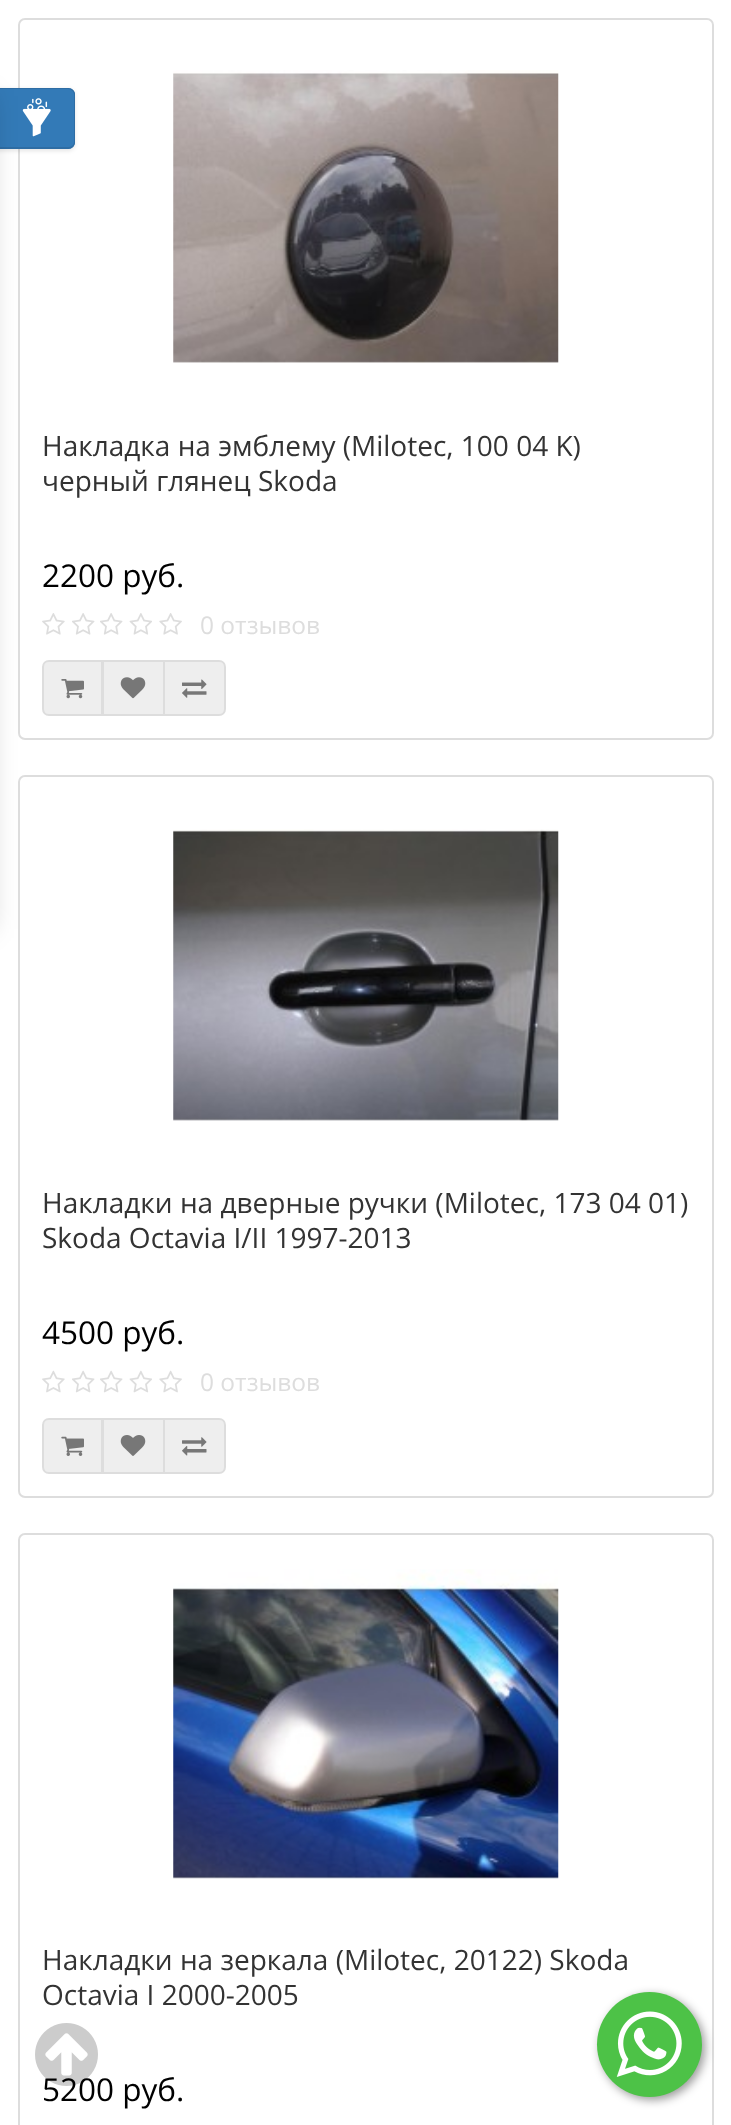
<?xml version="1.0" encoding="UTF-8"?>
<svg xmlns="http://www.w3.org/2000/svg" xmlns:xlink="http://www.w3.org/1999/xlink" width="731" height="2125">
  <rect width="100%" height="100%" fill="#ffffff" />
  <rect x="19" y="19" width="694" height="720" rx="6" fill="none" stroke="#dddddd" stroke-width="2" />
  <rect x="-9" y="89" width="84" height="62" rx="7" fill="#000000" fill-opacity="0.1" filter="blur(2px)" />
  <path d="M -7 88 h 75 c 4 0 7 3 7 7 v 47 c 0 4 -3 7 -7 7 h -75 z" fill="#337ab7" />
  <path d="M -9 88 h 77 c 4 0 7 3 7 6 v 48 c 0 4 -3 7 -7 7 h -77 z m 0 1 h 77 c 3 0 6 3 6 5 v 48 c 0 3 -3 5 -6 5 h -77 z" fill="#2e6da4" fill-rule="evenodd" />
  <image x="22" y="98" width="29" height="39" xlink:href="image1.png" />
  <rect x="19" y="776" width="694" height="721" rx="6" fill="none" stroke="#dddddd" stroke-width="2" />
  <rect x="-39" y="96" width="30" height="833" fill="#000000" fill-opacity="0.19" filter="blur(13px)" />
  <image x="173" y="70" width="386" height="293" xlink:href="image2.png" />
  <image x="42" y="613" width="23" height="22" xlink:href="image3.png" />
  <image x="72" y="613" width="23" height="22" xlink:href="image4.png" />
  <image x="100" y="613" width="23" height="22" xlink:href="image4.png" />
  <image x="129" y="613" width="23" height="22" xlink:href="image5.png" />
  <image x="159" y="613" width="23" height="22" xlink:href="image6.png" />
  <path d="M 49 661 h 53 v 54 h -53 c -3.5 0 -6 -2.5 -6 -6 v -42 c 0 -3.5 2.5 -6 6 -6 z" fill="#eeeeee" stroke="#dddddd" stroke-width="2" />
  <image x="61" y="679" width="23" height="20" xlink:href="image7.png" />
  <rect x="103" y="661" width="61" height="54" fill="#eeeeee" stroke="#dddddd" stroke-width="2" />
  <image x="120" y="677" width="26" height="22" xlink:href="image8.png" />
  <path d="M 164 661 h 55 c 3.5 0 6 2.5 6 6 v 42 c 0 3.5 -2.5 6 -6 6 h -55 z" fill="#eeeeee" stroke="#dddddd" stroke-width="2" />
  <image x="182" y="679" width="25" height="19" xlink:href="image9.png" />
  <image x="173" y="829" width="386" height="292" xlink:href="image10.png" />
  <image x="42" y="1370" width="23" height="23" xlink:href="image11.png" />
  <image x="72" y="1370" width="23" height="23" xlink:href="image12.png" />
  <image x="100" y="1370" width="23" height="23" xlink:href="image12.png" />
  <image x="129" y="1370" width="23" height="23" xlink:href="image13.png" />
  <image x="159" y="1370" width="23" height="23" xlink:href="image14.png" />
  <path d="M 49 1419 h 53 v 54 h -53 c -3.5 0 -6 -2.5 -6 -6 v -42 c 0 -3.5 2.5 -6 6 -6 z" fill="#eeeeee" stroke="#dddddd" stroke-width="2" />
  <image x="61" y="1436" width="23" height="20" xlink:href="image15.png" />
  <rect x="103" y="1419" width="61" height="54" fill="#eeeeee" stroke="#dddddd" stroke-width="2" />
  <image x="120" y="1435" width="26" height="21" xlink:href="image16.png" />
  <path d="M 164 1419 h 55 c 3.5 0 6 2.5 6 6 v 42 c 0 3.5 -2.5 6 -6 6 h -55 z" fill="#eeeeee" stroke="#dddddd" stroke-width="2" />
  <image x="182" y="1437" width="25" height="19" xlink:href="image17.png" />
  <rect x="19" y="1534" width="694" height="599" rx="6" fill="none" stroke="#dddddd" stroke-width="2" />
  <image x="173" y="1569" width="386" height="310" xlink:href="image18.png" />
  <rect x="600" y="1995" width="105" height="105" rx="52.5" fill="#000000" fill-opacity="0.4" filter="blur(5px)" />
  <circle cx="649.5" cy="2044.5" r="52.5" fill="#4dc247" />
  <image x="616" y="2011" width="66" height="66" xlink:href="image20.png" />
  <text x="42" y="456" style="font-family: Open Sans; font-size: 28px; fill: #333333">Накладка на эмблему (Milotec, 100 04 K)</text>
  <text x="42" y="491" style="font-family: Open Sans; font-size: 28px; fill: #333333">черный глянец Skoda</text>
  <text x="42" y="587" style="font-family: Open Sans; font-size: 31.5px; fill: #000000">2200 руб.</text>
  <text x="200" y="634" style="font-family: Open Sans; font-size: 24.5px; fill: #dddddd">0 отзывов</text>
  <text x="42" y="1213" style="font-family: Open Sans; font-size: 28px; fill: #333333">Накладки на дверные ручки (Milotec, 173 04 01)</text>
  <text x="42" y="1248" style="font-family: Open Sans; font-size: 28px; fill: #333333">Skoda Octavia I/II 1997-2013</text>
  <text x="42" y="1344" style="font-family: Open Sans; font-size: 31.5px; fill: #000000">4500 руб.</text>
  <text x="200" y="1391" style="font-family: Open Sans; font-size: 24.5px; fill: #dddddd">0 отзывов</text>
  <text x="42" y="1970" style="font-family: Open Sans; font-size: 28px; fill: #333333">Накладки на зеркала (Milotec, 20122) Skoda</text>
  <text x="42" y="2005" style="font-family: Open Sans; font-size: 28px; fill: #333333">Octavia I 2000-2005</text>
  <text x="42" y="2101" style="font-family: Open Sans; font-size: 31.5px; fill: #000000">5200 руб.</text>
  <image x="35" y="2023" width="63" height="63" xlink:href="image19.png" />
</svg>
